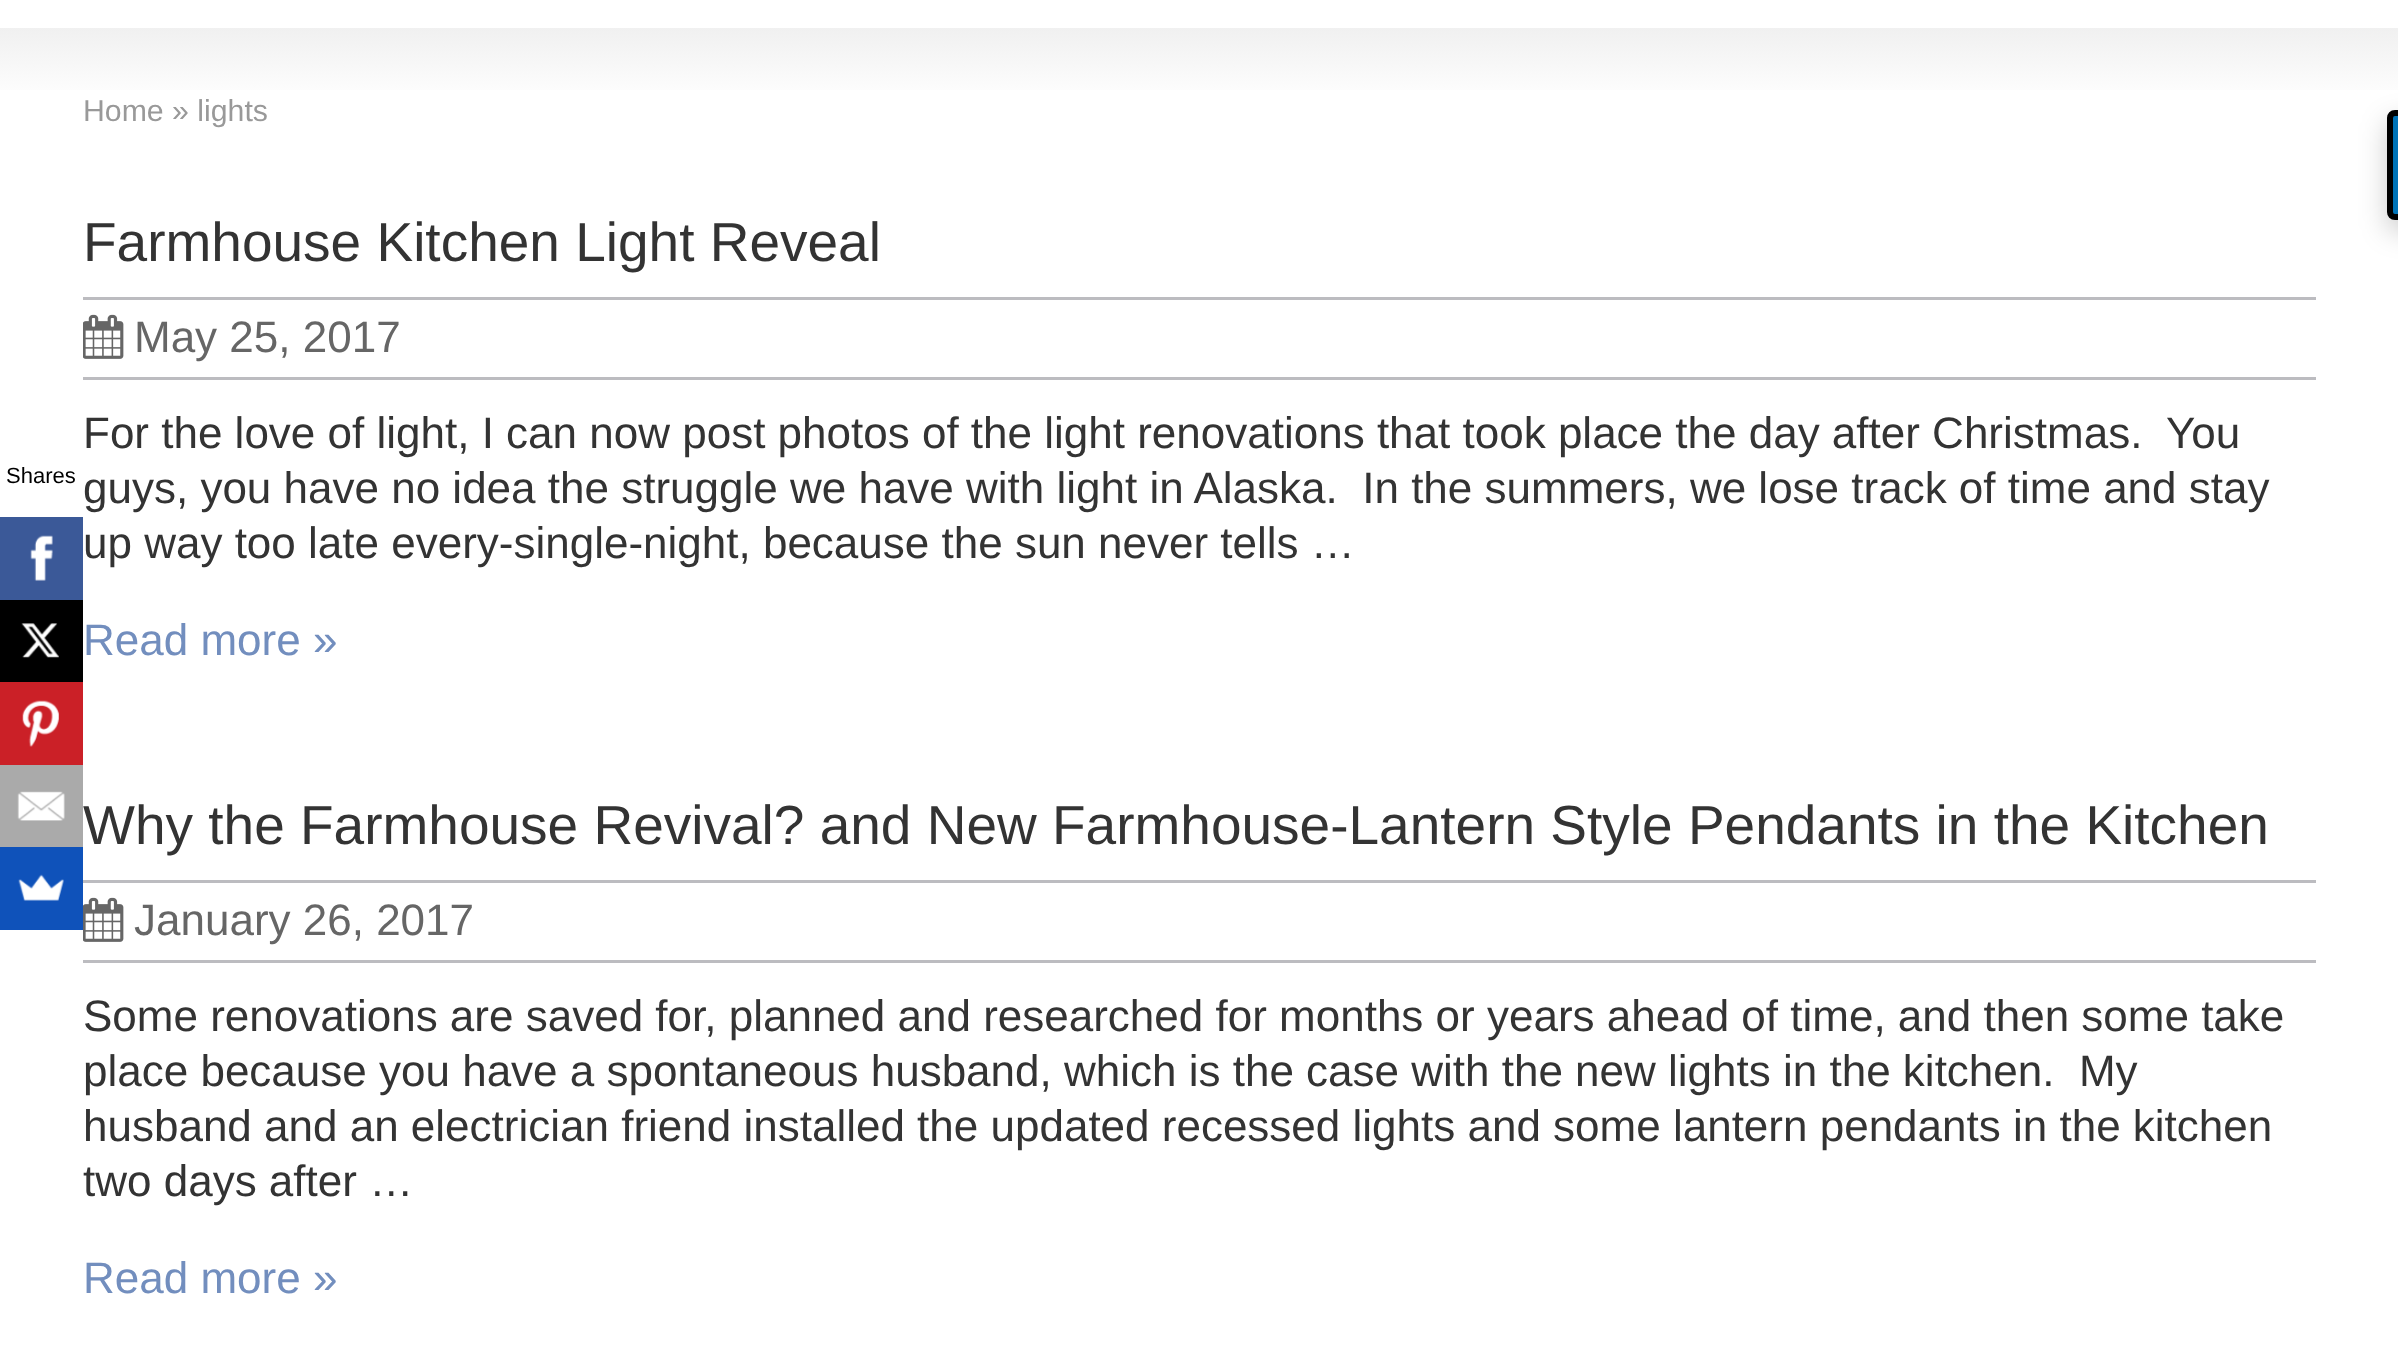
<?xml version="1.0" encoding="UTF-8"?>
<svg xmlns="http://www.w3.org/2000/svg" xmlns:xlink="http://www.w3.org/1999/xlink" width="2398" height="1362">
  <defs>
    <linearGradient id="g1" gradientUnits="userSpaceOnUse" x1="1199" y1="27" x2="1199" y2="102"><stop offset="0" stop-color="#f0f0f0" /><stop offset="1" stop-color="#ffffff" /></linearGradient>
  </defs>
  <rect width="100%" height="100%" fill="#ffffff" />
  <rect y="517" width="83" height="83" fill="#3b5998" />
  <image x="30" y="535" width="23" height="46" xlink:href="image1.png" />
  <rect y="600" width="83" height="82" fill="#000000" />
  <image x="21" y="623" width="38" height="35" xlink:href="image2.png" />
  <rect y="682" width="83" height="83" fill="#cb2027" />
  <image x="22" y="700" width="37" height="47" xlink:href="image3.png" />
  <rect y="765" width="83" height="82" fill="#aaaaaa" />
  <image x="17" y="791" width="48" height="30" xlink:href="image4.png" />
  <rect y="847" width="83" height="83" fill="#0f52ba" />
  <image x="18" y="874" width="46" height="27" xlink:href="image5.png" />
  <rect y="28" width="2398" height="62" fill="url(#g1)" />
  <rect x="83" y="297" width="2233" height="3" fill="#bcbcc0" />
  <rect x="83" y="377" width="2233" height="3" fill="#bcbcc0" />
  <image x="83" y="314" width="41" height="45" xlink:href="image6.png" />
  <rect x="83" y="880" width="2233" height="3" fill="#bcbcc0" />
  <rect x="83" y="960" width="2233" height="3" fill="#bcbcc0" />
  <image x="83" y="897" width="41" height="45" xlink:href="image6.png" />
  <rect x="2387" y="121" width="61" height="110" rx="8" fill="#000000" fill-opacity="0.2" filter="blur(14px)" />
  <path d="M 2395 113 h 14 v 104 h -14 c -3 0 -5 -2 -5 -5 v -94 c 0 -3 2 -5 5 -5 z" fill="#0073b7" stroke="#000000" stroke-width="6" />
  <text x="6" y="483" style="font-family: Liberation Sans; font-size: 22px; fill: #000000">Shares</text>
  <text x="83" y="121" style="font-family: Liberation Sans; font-size: 30.25px; fill: #999999">Home » lights</text>
  <text x="83" y="261" style="font-family: Liberation Sans; font-size: 55px; fill: #333333">Farmhouse Kitchen Light Reveal</text>
  <text x="134" y="352" style="font-family: Liberation Sans; font-size: 44px; fill: #666666">May 25, 2017</text>
  <text x="83" y="448" style="font-family: Liberation Sans; font-size: 44px; fill: #333333" xml:space="preserve">For the love of light, I can now post photos of the light renovations that took place the day after Christmas.  You</text>
  <text x="83" y="503" style="font-family: Liberation Sans; font-size: 44px; fill: #333333" xml:space="preserve">guys, you have no idea the struggle we have with light in Alaska.  In the summers, we lose track of time and stay</text>
  <text x="83" y="558" style="font-family: Liberation Sans; font-size: 44px; fill: #333333">up way too late every-single-night, because the sun never tells …</text>
  <text x="83" y="655" style="font-family: Liberation Sans; font-size: 44px; fill: #728ebe">Read more »</text>
  <text x="83" y="844" style="font-family: Liberation Sans; font-size: 55px; fill: #333333">Why the Farmhouse Revival? and New Farmhouse-Lantern Style Pendants in the Kitchen</text>
  <text x="134" y="935" style="font-family: Liberation Sans; font-size: 44px; fill: #666666">January 26, 2017</text>
  <text x="83" y="1031" style="font-family: Liberation Sans; font-size: 44px; fill: #333333">Some renovations are saved for, planned and researched for months or years ahead of time, and then some take</text>
  <text x="83" y="1086" style="font-family: Liberation Sans; font-size: 44px; fill: #333333" xml:space="preserve">place because you have a spontaneous husband, which is the case with the new lights in the kitchen.  My</text>
  <text x="83" y="1141" style="font-family: Liberation Sans; font-size: 44px; fill: #333333">husband and an electrician friend installed the updated recessed lights and some lantern pendants in the kitchen</text>
  <text x="83" y="1196" style="font-family: Liberation Sans; font-size: 44px; fill: #333333">two days after …</text>
  <text x="83" y="1293" style="font-family: Liberation Sans; font-size: 44px; fill: #728ebe">Read more »</text>
</svg>
